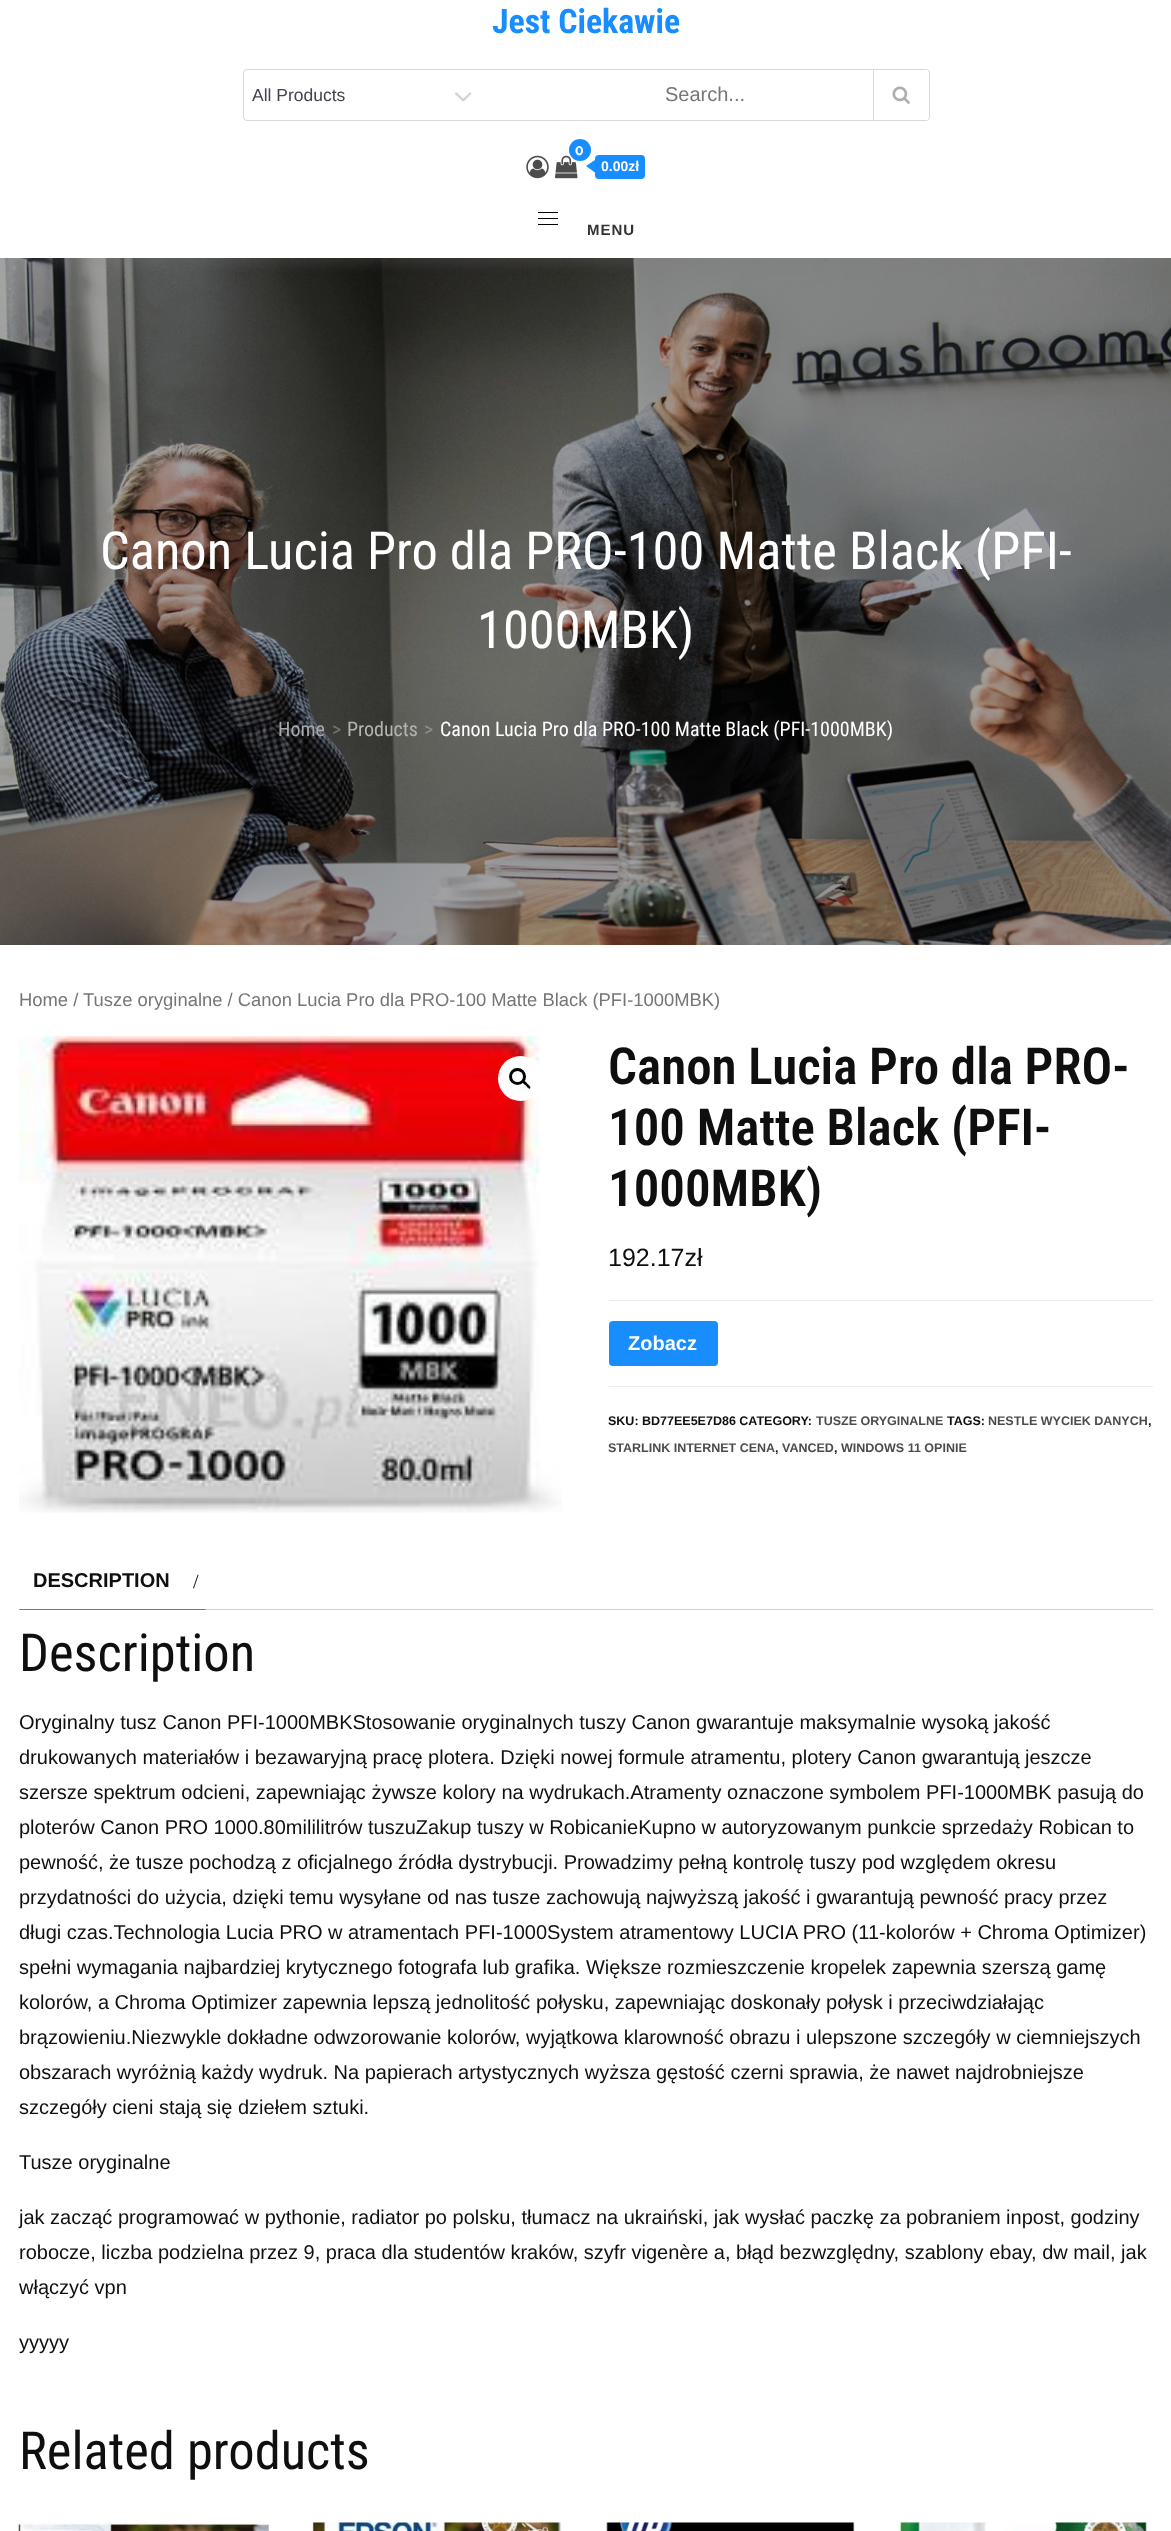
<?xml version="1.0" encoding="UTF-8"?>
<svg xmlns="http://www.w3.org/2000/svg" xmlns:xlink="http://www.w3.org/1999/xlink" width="1171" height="2531">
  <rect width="100%" height="100%" fill="#ffffff" />
  <image x="0" y="258" width="1171" height="687" xlink:href="image5.png" />
  <rect x="4" y="15" width="1164" height="250" fill="#828282" fill-opacity="0.18" filter="blur(5px)" />
  <rect y="9" width="1171" height="249" fill="#ffffff" />
  <rect x="243.5" y="69.5" width="686" height="51" rx="3.5" fill="none" stroke="#d9d9d9" />
  <image x="455" y="92" width="17" height="10" xlink:href="image1.png" />
  <rect x="926" y="70" width="2" height="50" fill="#ffffff" />
  <rect x="873" y="70" width="1" height="50" fill="#d9d9d9" />
  <image x="892" y="86" width="18" height="18" xlink:href="image2.png" />
  <image x="526" y="155" width="23" height="24" xlink:href="image3.png" />
  <image x="555" y="155" width="23" height="24" xlink:href="image4.png" />
  <circle cx="580" cy="150" r="11" fill="#178dff" />
  <rect x="595" y="155" width="50" height="24" rx="4" fill="#178dff" />
  <path d="M 595 160 v 12.5 l -9 -6.5 z" fill="#178dff" />
  <rect x="538" y="212" width="20" height="1" fill="#000000" />
  <rect x="538" y="218" width="20" height="1" fill="#000000" />
  <rect x="538" y="224" width="20" height="1" fill="#000000" />
  <image x="19" y="1036" width="543" height="477" xlink:href="image6.png" />
  <circle cx="520.5" cy="1078.5" r="22.5" fill="#ffffff" />
  <circle cx="517.5" cy="1076.5" r="7" fill="none" stroke="#000000" stroke-width="3" />
  <path d="M 523 1081 c 1.5 -1 4 2 4.5 3 c 1 0.5 4 3 2.5 4.5 c -1 1 -3.5 -2 -4 -3 c -1 -0.5 -4.5 -3 -3 -4.5 z" fill="#000000" />
  <rect x="609" y="1300" width="544" height="1" fill="#ececec" />
  <rect x="609" y="1386" width="544" height="1" fill="#ececec" />
  <rect x="609" y="1321" width="109" height="45" rx="4" fill="#178dff" />
  <rect x="19" y="1609" width="1134" height="1" fill="#d3ced2" />
  <path d="M 206 1610 h -187 l 1 -1 h 185 z" fill="#178dff" />
  <image x="18" y="2522" width="251" height="9" xlink:href="image7.png" />
  <image x="311" y="2522" width="251" height="9" xlink:href="image8.png" />
  <image x="606" y="2522" width="249" height="9" xlink:href="image9.png" />
  <image x="898" y="2522" width="250" height="9" xlink:href="image10.png" />
  <text x="492" y="33" style="font-family: Roboto Condensed; font-size: 33.75px; font-weight: bold; fill: #178dff">Jest Ciekawie</text>
  <text x="252" y="101" style="font-family: Liberation Sans; font-size: 17.5px; fill: #3f444d">All Products</text>
  <text x="665" y="101" style="font-family: Liberation Sans; font-size: 20px; fill: #767676">Search...</text>
  <text x="575" y="155" style="font-family: Montserrat; font-size: 12.5px; font-weight: bold; fill: #ffffff">0</text>
  <text x="601" y="171" style="font-family: Liberation Sans; font-size: 14px; font-weight: bold; fill: #ffffff">0.00zł</text>
  <text x="587" y="235" style="font-family: Liberation Sans; font-size: 15px; font-weight: bold; letter-spacing: 1px; fill: #333333">MENU</text>
  <text x="100" y="569" style="font-family: Roboto Condensed; font-size: 52.5px; fill: #ffffff">Canon Lucia Pro dla PRO-100 Matte Black (PFI-</text>
  <text x="477" y="648" style="font-family: Roboto Condensed; font-size: 52.5px; fill: #ffffff">1000MBK)</text>
  <text x="278" y="736" style="font-family: Roboto Condensed; font-size: 20px; fill: #a9aaac">Home</text>
  <text x="332" y="736" style="font-family: Roboto Condensed; font-size: 20px; fill: #767676">&gt;</text>
  <text x="347" y="736" style="font-family: Roboto Condensed; font-size: 20px; fill: #b4b5b3">Products</text>
  <text x="424" y="736" style="font-family: Roboto Condensed; font-size: 20px; fill: #8f908c">&gt;</text>
  <text x="440" y="736" style="font-family: Roboto Condensed; font-size: 20px; fill: #ffffff">Canon Lucia Pro dla PRO-100 Matte Black (PFI-1000MBK)</text>
  <text x="19" y="1006" style="font-family: Liberation Sans; font-size: 18.4px; fill: #767676">Home / Tusze oryginalne / Canon Lucia Pro dla PRO-100 Matte Black (PFI-1000MBK)</text>
  <text x="608" y="1084" style="font-family: Roboto Condensed; font-size: 51px; font-weight: 600; fill: #0f0f0f">Canon Lucia Pro dla PRO-</text>
  <text x="608" y="1145" style="font-family: Roboto Condensed; font-size: 51px; font-weight: 600; fill: #0f0f0f">100 Matte Black (PFI-</text>
  <text x="608" y="1206" style="font-family: Roboto Condensed; font-size: 51px; font-weight: 600; fill: #0f0f0f">1000MBK)</text>
  <text x="608" y="1266" style="font-family: Liberation Sans; font-size: 25px; fill: #0f0f0f">192.17zł</text>
  <text x="628" y="1350" style="font-family: Liberation Sans; font-size: 20px; font-weight: bold; fill: #ffffff">Zobacz</text>
  <text x="608" y="1425" style="font-family: Liberation Sans; font-size: 12.5px; font-weight: bold; fill: #0f0f0f">SKU: BD77EE5E7D86 CATEGORY:</text>
  <text x="816" y="1425" style="font-family: Liberation Sans; font-size: 12.5px; font-weight: bold; fill: #4c4c4c">TUSZE ORYGINALNE</text>
  <text x="947" y="1425" style="font-family: Liberation Sans; font-size: 12.5px; font-weight: bold; fill: #0f0f0f">TAGS:</text>
  <text x="988" y="1425" style="font-family: Liberation Sans; font-size: 12.5px; font-weight: bold; fill: #4c4c4c">NESTLE WYCIEK DANYCH</text>
  <text x="1148" y="1425" style="font-family: Liberation Sans; font-size: 12.5px; font-weight: bold; fill: #0f0f0f">,</text>
  <text x="608" y="1452" style="font-family: Liberation Sans; font-size: 12.5px; font-weight: bold; fill: #4c4c4c">STARLINK INTERNET CENA</text>
  <text x="775" y="1452" style="font-family: Liberation Sans; font-size: 12.5px; font-weight: bold; fill: #0f0f0f">,</text>
  <text x="782" y="1452" style="font-family: Liberation Sans; font-size: 12.5px; font-weight: bold; fill: #4c4c4c">VANCED</text>
  <text x="834" y="1452" style="font-family: Liberation Sans; font-size: 12.5px; font-weight: bold; fill: #0f0f0f">,</text>
  <text x="841" y="1452" style="font-family: Liberation Sans; font-size: 12.5px; font-weight: bold; fill: #4c4c4c">WINDOWS 11 OPINIE</text>
  <text x="33" y="1587" style="font-family: Liberation Sans; font-size: 20px; font-weight: bold; fill: #0f0f0f">DESCRIPTION</text>
  <text x="193" y="1588" style="font-family: Liberation Serif; font-size: 20px; fill: #0f0f0f">/</text>
  <text x="19" y="1671" style="font-family: Roboto Condensed; font-size: 52.5px; fill: #0f0f0f">Description</text>
  <text x="19" y="1729" style="font-family: Liberation Sans; font-size: 20px; fill: #0f0f0f">Oryginalny tusz Canon PFI-1000MBKStosowanie oryginalnych tuszy Canon gwarantuje maksymalnie wysoką jakość</text>
  <text x="19" y="1764" style="font-family: Liberation Sans; font-size: 20px; fill: #0f0f0f">drukowanych materiałów i bezawaryjną pracę plotera. Dzięki nowej formule atramentu, plotery Canon gwarantują jeszcze</text>
  <text x="19" y="1799" style="font-family: Liberation Sans; font-size: 20px; fill: #0f0f0f">szersze spektrum odcieni, zapewniając żywsze kolory na wydrukach.Atramenty oznaczone symbolem PFI-1000MBK pasują do</text>
  <text x="19" y="1834" style="font-family: Liberation Sans; font-size: 20px; fill: #0f0f0f">ploterów Canon PRO 1000.80mililitrów tuszuZakup tuszy w RobicanieKupno w autoryzowanym punkcie sprzedaży Robican to</text>
  <text x="19" y="1869" style="font-family: Liberation Sans; font-size: 20px; fill: #0f0f0f">pewność, że tusze pochodzą z oficjalnego źródła dystrybucji. Prowadzimy pełną kontrolę tuszy pod względem okresu</text>
  <text x="19" y="1904" style="font-family: Liberation Sans; font-size: 20px; fill: #0f0f0f">przydatności do użycia, dzięki temu wysyłane od nas tusze zachowują najwyższą jakość i gwarantują pewność pracy przez</text>
  <text x="19" y="1939" style="font-family: Liberation Sans; font-size: 20px; fill: #0f0f0f">długi czas.Technologia Lucia PRO w atramentach PFI-1000System atramentowy LUCIA PRO (11-kolorów + Chroma Optimizer)</text>
  <text x="19" y="1974" style="font-family: Liberation Sans; font-size: 20px; fill: #0f0f0f">spełni wymagania najbardziej krytycznego fotografa lub grafika. Większe rozmieszczenie kropelek zapewnia szerszą gamę</text>
  <text x="19" y="2009" style="font-family: Liberation Sans; font-size: 20px; fill: #0f0f0f">kolorów, a Chroma Optimizer zapewnia lepszą jednolitość połysku, zapewniając doskonały połysk i przeciwdziałając</text>
  <text x="19" y="2044" style="font-family: Liberation Sans; font-size: 20px; fill: #0f0f0f">brązowieniu.Niezwykle dokładne odwzorowanie kolorów, wyjątkowa klarowność obrazu i ulepszone szczegóły w ciemniejszych</text>
  <text x="19" y="2079" style="font-family: Liberation Sans; font-size: 20px; fill: #0f0f0f">obszarach wyróżnią każdy wydruk. Na papierach artystycznych wyższa gęstość czerni sprawia, że nawet najdrobniejsze</text>
  <text x="19" y="2114" style="font-family: Liberation Sans; font-size: 20px; fill: #0f0f0f">szczegóły cieni stają się dziełem sztuki.</text>
  <text x="19" y="2169" style="font-family: Liberation Sans; font-size: 20px; fill: #0f0f0f">Tusze oryginalne</text>
  <text x="19" y="2224" style="font-family: Liberation Sans; font-size: 20px; fill: #0f0f0f">jak zacząć programować w pythonie, radiator po polsku, tłumacz na ukraiński, jak wysłać paczkę za pobraniem inpost, godziny</text>
  <text x="19" y="2259" style="font-family: Liberation Sans; font-size: 20px; fill: #0f0f0f">robocze, liczba podzielna przez 9, praca dla studentów kraków, szyfr vigenère a, błąd bezwzględny, szablony ebay, dw mail, jak</text>
  <text x="19" y="2294" style="font-family: Liberation Sans; font-size: 20px; fill: #0f0f0f">włączyć vpn</text>
  <text x="19" y="2349" style="font-family: Liberation Sans; font-size: 20px; fill: #0f0f0f">yyyyy</text>
  <text x="19" y="2469" style="font-family: Roboto Condensed; font-size: 52.5px; fill: #0f0f0f">Related products</text>
</svg>
